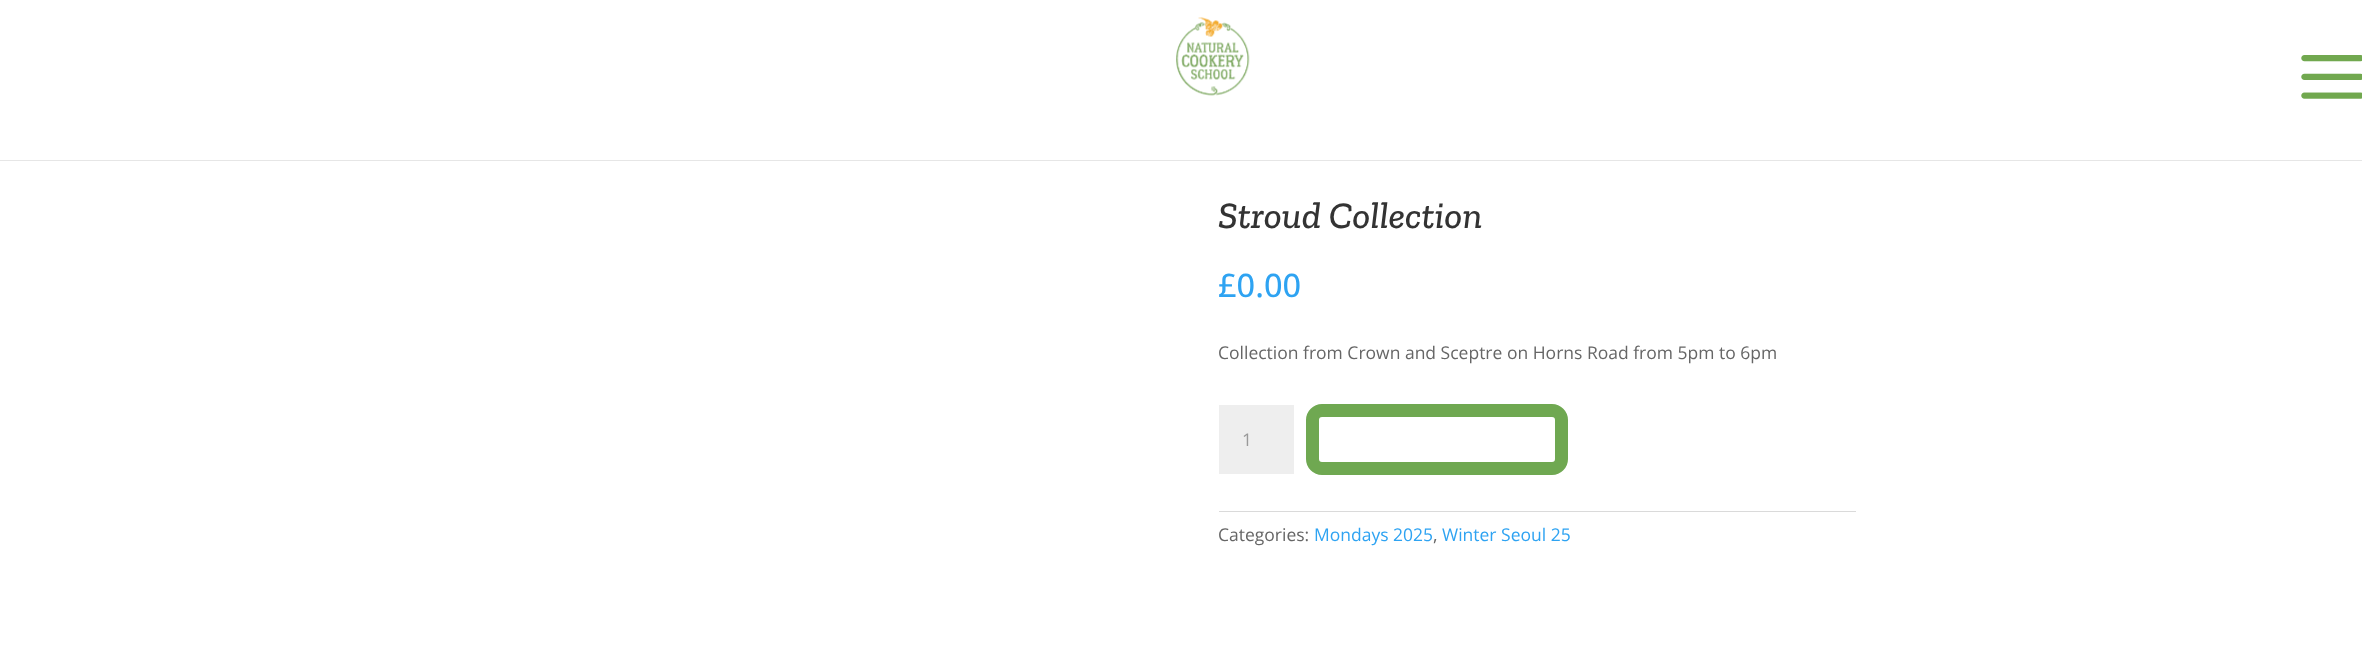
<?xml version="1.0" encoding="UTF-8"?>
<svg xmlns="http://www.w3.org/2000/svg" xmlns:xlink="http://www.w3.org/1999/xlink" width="2362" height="666">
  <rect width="100%" height="100%" fill="#ffffff" />
  <path d="M 0 160 v 1 h 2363 v -160 h -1 v 159 z" fill="#e6e6e6" />
  <image x="1176" y="17" width="74" height="79" xlink:href="image1.png" />
  <image x="2301" y="55" width="61" height="44" xlink:href="image2.png" />
  <rect x="1219" y="405" width="75" height="69" fill="#eeeeee" />
  <rect x="1312.5" y="410.5" width="249" height="58" rx="9.5" fill="none" stroke="#6fa851" stroke-width="13" />
  <rect x="1219" y="511" width="637" height="1" fill="#dadada" />
  <text x="1218" y="228" style="font-family: Zilla Slab; font-size: 37.5px; font-weight: 500; font-style: italic; fill: #333333">Stroud Collection</text>
  <text x="1218" y="297" style="font-family: Open Sans; font-size: 32.5px; font-weight: 500; fill: #2ea3f2">£0.00</text>
  <text x="1218" y="359" style="font-family: Open Sans; font-size: 17.5px; fill: #666666">Collection from Crown and Sceptre on Horns Road from 5pm to 6pm</text>
  <text x="1242" y="446" style="font-family: Open Sans; font-size: 17.5px; fill: #999999">1</text>
  <text x="1218" y="541" style="font-family: Open Sans; font-size: 17.5px; fill: #666666">Categories:</text>
  <text x="1314" y="541" style="font-family: Open Sans; font-size: 17.5px; fill: #2ea3f2">Mondays 2025</text>
  <text x="1433" y="541" style="font-family: Open Sans; font-size: 17.5px; fill: #666666">,</text>
  <text x="1442" y="541" style="font-family: Open Sans; font-size: 17.5px; fill: #2ea3f2">Winter Seoul 25</text>
</svg>
